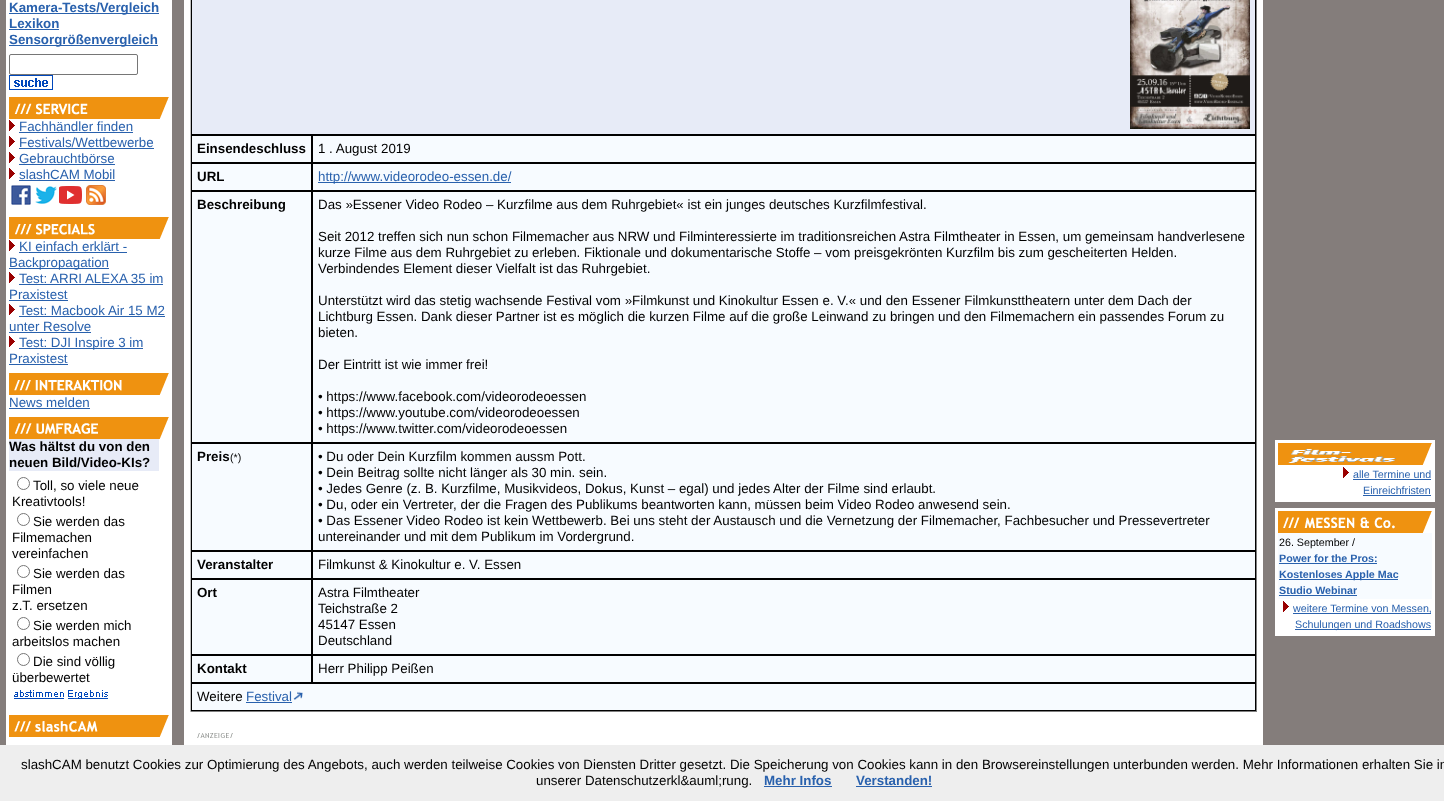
<?xml version="1.0" encoding="UTF-8"?>
<svg xmlns="http://www.w3.org/2000/svg" xmlns:xlink="http://www.w3.org/1999/xlink" width="1444" height="801">
  <rect width="100%" height="100%" fill="#847d7b" />
  <rect x="6" width="166" height="745" fill="#ffffff" />
  <rect x="9" y="13" width="150" height="1" fill="#2961ad" />
  <rect x="9" y="29" width="50" height="1" fill="#2961ad" />
  <rect x="9" y="45" width="149" height="1" fill="#2961ad" />
  <rect x="9.5" y="54.5" width="128" height="20" rx="1.5" fill="none" stroke="#767676" />
  <image x="9" y="75" width="44" height="15" xlink:href="image1.png" />
  <rect x="9" y="97" width="159" height="22" fill="#ef9210" />
  <image x="14" y="103" width="74" height="12" xlink:href="image2.png" />
  <image x="159" y="97" width="10" height="22" xlink:href="image3.png" />
  <image x="9" y="120" width="6" height="11" xlink:href="image4.png" />
  <rect x="19" y="132" width="114" height="1" fill="#2961ad" />
  <image x="9" y="136" width="6" height="11" xlink:href="image4.png" />
  <rect x="19" y="148" width="135" height="1" fill="#2961ad" />
  <image x="9" y="152" width="6" height="11" xlink:href="image4.png" />
  <rect x="19" y="164" width="96" height="1" fill="#2961ad" />
  <image x="9" y="168" width="6" height="11" xlink:href="image4.png" />
  <rect x="19" y="180" width="96" height="1" fill="#2961ad" />
  <image x="11" y="185" width="20" height="20" xlink:href="image5.png" />
  <image x="35" y="186" width="22" height="18" xlink:href="image6.png" />
  <image x="59" y="186" width="23" height="18" xlink:href="image7.png" />
  <image x="86" y="185" width="20" height="20" xlink:href="image8.png" />
  <rect x="9" y="217" width="159" height="22" fill="#ef9210" />
  <image x="15" y="224" width="80" height="11" xlink:href="image9.png" />
  <image x="159" y="217" width="10" height="22" xlink:href="image3.png" />
  <image x="9" y="240" width="6" height="11" xlink:href="image4.png" />
  <rect x="19" y="252" width="108" height="1" fill="#2961ad" />
  <rect x="9" y="268" width="100" height="1" fill="#2961ad" />
  <image x="9" y="272" width="6" height="11" xlink:href="image4.png" />
  <rect x="19" y="284" width="144" height="1" fill="#2961ad" />
  <rect x="9" y="300" width="59" height="1" fill="#2961ad" />
  <image x="9" y="304" width="6" height="11" xlink:href="image4.png" />
  <rect x="19" y="316" width="146" height="1" fill="#2961ad" />
  <rect x="9" y="332" width="82" height="1" fill="#2961ad" />
  <image x="9" y="336" width="6" height="11" xlink:href="image4.png" />
  <rect x="19" y="348" width="124" height="1" fill="#2961ad" />
  <rect x="9" y="364" width="59" height="1" fill="#2961ad" />
  <rect x="9" y="373" width="159" height="22" fill="#ef9210" />
  <image x="14" y="380" width="108" height="11" xlink:href="image10.png" />
  <image x="159" y="373" width="10" height="22" xlink:href="image3.png" />
  <rect x="9" y="408" width="81" height="1" fill="#2961ad" />
  <rect x="9" y="417" width="159" height="22" fill="#ef9210" />
  <image x="15" y="423" width="83" height="11" xlink:href="image11.png" />
  <image x="159" y="417" width="10" height="22" xlink:href="image3.png" />
  <rect x="9" y="439" width="150" height="32" fill="#e7ebf7" />
  <circle cx="23.5" cy="483.5" r="6" fill="none" stroke="#767676" />
  <circle cx="23.5" cy="519.5" r="6" fill="none" stroke="#767676" />
  <circle cx="23.5" cy="571.5" r="6" fill="none" stroke="#767676" />
  <circle cx="23.5" cy="623.5" r="6" fill="none" stroke="#767676" />
  <circle cx="23.5" cy="659.5" r="6" fill="none" stroke="#767676" />
  <image x="14" y="690" width="50" height="9" xlink:href="image12.png" />
  <image x="68" y="690" width="40" height="9" xlink:href="image13.png" />
  <rect x="9" y="715" width="159" height="22" fill="#ef9210" />
  <image x="14" y="721" width="84" height="11" xlink:href="image14.png" />
  <image x="159" y="715" width="10" height="22" xlink:href="image3.png" />
  <rect x="184" width="1079" height="745" fill="#ffffff" />
  <rect x="1256" width="1" height="712" fill="#7f7f7f" />
  <rect x="190" y="711" width="1067" height="1" fill="#7f7f7f" />
  <rect x="190" width="1" height="712" fill="#bfbfbf" />
  <rect x="191.5" y="-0.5" width="1064" height="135" fill="#e7ebf7" stroke="#000000" />
  <image x="1130" y="0" width="120" height="129" xlink:href="image15.png" />
  <rect x="191.5" y="135.5" width="120" height="27" fill="#f7fbff" stroke="#000000" />
  <rect x="312.5" y="135.5" width="943" height="27" fill="#f7fbff" stroke="#000000" />
  <rect x="191.5" y="163.5" width="120" height="27" fill="#f7fbff" stroke="#000000" />
  <rect x="312.5" y="163.5" width="943" height="27" fill="#f7fbff" stroke="#000000" />
  <rect x="318" y="182" width="193" height="1" fill="#2961ad" />
  <rect x="191.5" y="191.5" width="120" height="251" fill="#f7fbff" stroke="#000000" />
  <rect x="312.5" y="191.5" width="943" height="251" fill="#f7fbff" stroke="#000000" />
  <rect x="191.5" y="443.5" width="120" height="107" fill="#f7fbff" stroke="#000000" />
  <rect x="312.5" y="443.5" width="943" height="107" fill="#f7fbff" stroke="#000000" />
  <rect x="191.5" y="551.5" width="120" height="27" fill="#f7fbff" stroke="#000000" />
  <rect x="312.5" y="551.5" width="943" height="27" fill="#f7fbff" stroke="#000000" />
  <rect x="191.5" y="579.5" width="120" height="75" fill="#f7fbff" stroke="#000000" />
  <rect x="312.5" y="579.5" width="943" height="75" fill="#f7fbff" stroke="#000000" />
  <rect x="191.5" y="655.5" width="120" height="27" fill="#f7fbff" stroke="#000000" />
  <rect x="312.5" y="655.5" width="943" height="27" fill="#f7fbff" stroke="#000000" />
  <rect x="191.5" y="683.5" width="1064" height="27" fill="#f7fbff" stroke="#000000" />
  <rect x="246" y="702" width="46" height="1" fill="#2961ad" />
  <image x="293" y="691" width="10" height="9" xlink:href="image16.png" />
  <image x="197" y="733" width="36" height="5" xlink:href="image17.png" />
  <rect x="1275" y="440" width="160" height="62" fill="#ffffff" />
  <rect x="1278" y="443" width="153" height="22" fill="#ef9210" />
  <image x="1288" y="449" width="108" height="14" xlink:href="image18.png" />
  <image x="1422" y="443" width="10" height="22" xlink:href="image3.png" />
  <image x="1343" y="467" width="6" height="11" xlink:href="image4.png" />
  <rect x="1353" y="479" width="78" height="1" fill="#2961ad" />
  <rect x="1363" y="495" width="68" height="1" fill="#2961ad" />
  <rect x="1275" y="508" width="160" height="128" fill="#ffffff" />
  <rect x="1278" y="511" width="153" height="22" fill="#ef9210" />
  <image x="1283" y="517" width="112" height="12" xlink:href="image19.png" />
  <image x="1422" y="511" width="10" height="22" xlink:href="image3.png" />
  <rect x="1278" y="533" width="154" height="66" fill="#f7fbff" />
  <rect x="1279" y="563" width="98" height="1" fill="#2961ad" />
  <rect x="1279" y="579" width="119" height="1" fill="#2961ad" />
  <rect x="1279" y="595" width="78" height="1" fill="#2961ad" />
  <image x="1283" y="601" width="6" height="11" xlink:href="image4.png" />
  <rect x="1293" y="613" width="138" height="1" fill="#2961ad" />
  <rect x="1295" y="629" width="136" height="1" fill="#2961ad" />
  <rect y="745" width="1444" height="56" fill="#eeeeee" />
  <rect x="764" y="786" width="68" height="1" fill="#2961ad" />
  <rect x="856" y="786" width="76" height="1" fill="#2961ad" />
  <text x="9" y="12" style="font-family: Liberation Sans; font-size: 13.33px; font-weight: bold; fill: #2961ad">Kamera-Tests/Vergleich</text>
  <text x="9" y="28" style="font-family: Liberation Sans; font-size: 13.33px; font-weight: bold; fill: #2961ad">Lexikon</text>
  <text x="9" y="44" style="font-family: Liberation Sans; font-size: 13.33px; font-weight: bold; fill: #2961ad">Sensorgrößenvergleich</text>
  <text x="19" y="131" style="font-family: Liberation Sans; font-size: 13.33px; fill: #2961ad">Fachhändler finden</text>
  <text x="19" y="147" style="font-family: Liberation Sans; font-size: 13.33px; fill: #2961ad">Festivals/Wettbewerbe</text>
  <text x="19" y="163" style="font-family: Liberation Sans; font-size: 13.33px; fill: #2961ad">Gebrauchtbörse</text>
  <text x="19" y="179" style="font-family: Liberation Sans; font-size: 13.33px; fill: #2961ad">slashCAM Mobil</text>
  <text x="19" y="251" style="font-family: Liberation Sans; font-size: 13.33px; fill: #2961ad">KI einfach erklärt -</text>
  <text x="9" y="267" style="font-family: Liberation Sans; font-size: 13.33px; fill: #2961ad">Backpropagation</text>
  <text x="19" y="283" style="font-family: Liberation Sans; font-size: 13.33px; fill: #2961ad">Test: ARRI ALEXA 35 im</text>
  <text x="9" y="299" style="font-family: Liberation Sans; font-size: 13.33px; fill: #2961ad">Praxistest</text>
  <text x="19" y="315" style="font-family: Liberation Sans; font-size: 13.33px; fill: #2961ad">Test: Macbook Air 15 M2</text>
  <text x="9" y="331" style="font-family: Liberation Sans; font-size: 13.33px; fill: #2961ad">unter Resolve</text>
  <text x="19" y="347" style="font-family: Liberation Sans; font-size: 13.33px; fill: #2961ad">Test: DJI Inspire 3 im</text>
  <text x="9" y="363" style="font-family: Liberation Sans; font-size: 13.33px; fill: #2961ad">Praxistest</text>
  <text x="9" y="407" style="font-family: Liberation Sans; font-size: 13.33px; fill: #2961ad">News melden</text>
  <text x="9" y="451" style="font-family: Liberation Sans; font-size: 13.33px; font-weight: bold; fill: #000000">Was hältst du von den</text>
  <text x="9" y="467" style="font-family: Liberation Sans; font-size: 13.33px; font-weight: bold; fill: #000000">neuen Bild/Video-KIs?</text>
  <text x="33" y="490" style="font-family: Liberation Sans; font-size: 13.33px; fill: #000000">Toll, so viele neue</text>
  <text x="12" y="506" style="font-family: Liberation Sans; font-size: 13.33px; fill: #000000">Kreativtools!</text>
  <text x="33" y="526" style="font-family: Liberation Sans; font-size: 13.33px; fill: #000000">Sie werden das</text>
  <text x="12" y="542" style="font-family: Liberation Sans; font-size: 13.33px; fill: #000000">Filmemachen</text>
  <text x="12" y="558" style="font-family: Liberation Sans; font-size: 13.33px; fill: #000000">vereinfachen</text>
  <text x="33" y="578" style="font-family: Liberation Sans; font-size: 13.33px; fill: #000000">Sie werden das</text>
  <text x="12" y="594" style="font-family: Liberation Sans; font-size: 13.33px; fill: #000000">Filmen</text>
  <text x="12" y="610" style="font-family: Liberation Sans; font-size: 13.33px; fill: #000000">z.T. ersetzen</text>
  <text x="33" y="630" style="font-family: Liberation Sans; font-size: 13.33px; fill: #000000">Sie werden mich</text>
  <text x="12" y="646" style="font-family: Liberation Sans; font-size: 13.33px; fill: #000000">arbeitslos machen</text>
  <text x="33" y="666" style="font-family: Liberation Sans; font-size: 13.33px; fill: #000000">Die sind völlig</text>
  <text x="12" y="682" style="font-family: Liberation Sans; font-size: 13.33px; fill: #000000">überbewertet</text>
  <text x="197" y="153" style="font-family: Liberation Sans; font-size: 13.33px; font-weight: bold; fill: #000000">Einsendeschluss</text>
  <text x="318" y="153" style="font-family: Liberation Sans; font-size: 13.33px; fill: #000000">1 . August 2019</text>
  <text x="197" y="181" style="font-family: Liberation Sans; font-size: 13.33px; font-weight: bold; fill: #000000">URL</text>
  <text x="318" y="181" style="font-family: Liberation Sans; font-size: 13.33px; fill: #2961ad">http://www.videorodeo-essen.de/</text>
  <text x="197" y="209" style="font-family: Liberation Sans; font-size: 13.33px; font-weight: bold; fill: #000000">Beschreibung</text>
  <text x="318" y="209" style="font-family: Liberation Sans; font-size: 13.33px; fill: #000000">Das »Essener Video Rodeo – Kurzfilme aus dem Ruhrgebiet« ist ein junges deutsches Kurzfilmfestival.</text>
  <text x="318" y="241" style="font-family: Liberation Sans; font-size: 13.33px; fill: #000000">Seit 2012 treffen sich nun schon Filmemacher aus NRW und Filminteressierte im traditionsreichen Astra Filmtheater in Essen, um gemeinsam handverlesene</text>
  <text x="318" y="257" style="font-family: Liberation Sans; font-size: 13.33px; fill: #000000">kurze Filme aus dem Ruhrgebiet zu erleben. Fiktionale und dokumentarische Stoffe – vom preisgekrönten Kurzfilm bis zum gescheiterten Helden.</text>
  <text x="318" y="273" style="font-family: Liberation Sans; font-size: 13.33px; fill: #000000">Verbindendes Element dieser Vielfalt ist das Ruhrgebiet.</text>
  <text x="318" y="305" style="font-family: Liberation Sans; font-size: 13.33px; fill: #000000">Unterstützt wird das stetig wachsende Festival vom »Filmkunst und Kinokultur Essen e. V.« und den Essener Filmkunsttheatern unter dem Dach der</text>
  <text x="318" y="321" style="font-family: Liberation Sans; font-size: 13.33px; fill: #000000">Lichtburg Essen. Dank dieser Partner ist es möglich die kurzen Filme auf die große Leinwand zu bringen und den Filmemachern ein passendes Forum zu</text>
  <text x="318" y="337" style="font-family: Liberation Sans; font-size: 13.33px; fill: #000000">bieten.</text>
  <text x="318" y="369" style="font-family: Liberation Sans; font-size: 13.33px; fill: #000000">Der Eintritt ist wie immer frei!</text>
  <text x="318" y="401" style="font-family: Liberation Sans; font-size: 13.33px; fill: #000000">• https://www.facebook.com/videorodeoessen</text>
  <text x="318" y="417" style="font-family: Liberation Sans; font-size: 13.33px; fill: #000000">• https://www.youtube.com/videorodeoessen</text>
  <text x="318" y="433" style="font-family: Liberation Sans; font-size: 13.33px; fill: #000000">• https://www.twitter.com/videorodeoessen</text>
  <text x="197" y="461" style="font-family: Liberation Sans; font-size: 13.33px; font-weight: bold; fill: #000000">Preis</text>
  <text x="230" y="461" style="font-family: Liberation Sans; font-size: 10.7px; fill: #000000">(*)</text>
  <text x="318" y="461" style="font-family: Liberation Sans; font-size: 13.33px; fill: #000000">• Du oder Dein Kurzfilm kommen aussm Pott.</text>
  <text x="318" y="477" style="font-family: Liberation Sans; font-size: 13.33px; fill: #000000">• Dein Beitrag sollte nicht länger als 30 min. sein.</text>
  <text x="318" y="493" style="font-family: Liberation Sans; font-size: 13.33px; fill: #000000">• Jedes Genre (z. B. Kurzfilme, Musikvideos, Dokus, Kunst – egal) und jedes Alter der Filme sind erlaubt.</text>
  <text x="318" y="509" style="font-family: Liberation Sans; font-size: 13.33px; fill: #000000">• Du, oder ein Vertreter, der die Fragen des Publikums beantworten kann, müssen beim Video Rodeo anwesend sein.</text>
  <text x="318" y="525" style="font-family: Liberation Sans; font-size: 13.33px; fill: #000000">• Das Essener Video Rodeo ist kein Wettbewerb. Bei uns steht der Austausch und die Vernetzung der Filmemacher, Fachbesucher und Pressevertreter</text>
  <text x="318" y="541" style="font-family: Liberation Sans; font-size: 13.33px; fill: #000000">untereinander und mit dem Publikum im Vordergrund.</text>
  <text x="197" y="569" style="font-family: Liberation Sans; font-size: 13.33px; font-weight: bold; fill: #000000">Veranstalter</text>
  <text x="318" y="569" style="font-family: Liberation Sans; font-size: 13.33px; fill: #000000">Filmkunst &amp; Kinokultur e. V. Essen</text>
  <text x="197" y="597" style="font-family: Liberation Sans; font-size: 13.33px; font-weight: bold; fill: #000000">Ort</text>
  <text x="318" y="597" style="font-family: Liberation Sans; font-size: 13.33px; fill: #000000">Astra Filmtheater</text>
  <text x="318" y="613" style="font-family: Liberation Sans; font-size: 13.33px; fill: #000000">Teichstraße 2</text>
  <text x="318" y="629" style="font-family: Liberation Sans; font-size: 13.33px; fill: #000000">45147 Essen</text>
  <text x="318" y="645" style="font-family: Liberation Sans; font-size: 13.33px; fill: #000000">Deutschland</text>
  <text x="197" y="673" style="font-family: Liberation Sans; font-size: 13.33px; font-weight: bold; fill: #000000">Kontakt</text>
  <text x="318" y="673" style="font-family: Liberation Sans; font-size: 13.33px; fill: #000000">Herr Philipp Peißen</text>
  <text x="197" y="701" style="font-family: Liberation Sans; font-size: 13.33px; fill: #000000">Weitere</text>
  <text x="246" y="701" style="font-family: Liberation Sans; font-size: 13.33px; fill: #2961ad">Festival</text>
  <text x="1353" y="478" style="font-family: Liberation Sans; font-size: 10.7px; fill: #2961ad">alle Termine und</text>
  <text x="1363" y="494" style="font-family: Liberation Sans; font-size: 10.7px; fill: #2961ad">Einreichfristen</text>
  <text x="1279" y="546" style="font-family: Liberation Sans; font-size: 10.7px; fill: #000000">26. September /</text>
  <text x="1279" y="562" style="font-family: Liberation Sans; font-size: 10.7px; font-weight: bold; fill: #2961ad">Power for the Pros:</text>
  <text x="1279" y="578" style="font-family: Liberation Sans; font-size: 10.7px; font-weight: bold; fill: #2961ad">Kostenloses Apple Mac</text>
  <text x="1279" y="594" style="font-family: Liberation Sans; font-size: 10.7px; font-weight: bold; fill: #2961ad">Studio Webinar</text>
  <text x="1293" y="612" style="font-family: Liberation Sans; font-size: 10.7px; fill: #2961ad">weitere Termine von Messen,</text>
  <text x="1295" y="628" style="font-family: Liberation Sans; font-size: 10.7px; fill: #2961ad">Schulungen und Roadshows</text>
  <text x="21" y="769" style="font-family: Liberation Sans; font-size: 13.33px; fill: #000000">slashCAM benutzt Cookies zur Optimierung des Angebots, auch werden teilweise Cookies von Diensten Dritter gesetzt. Die Speicherung von Cookies kann in den Browsereinstellungen unterbunden werden. Mehr Informationen erhalten Sie in</text>
  <text x="536" y="785" style="font-family: Liberation Sans; font-size: 13.33px; fill: #000000">unserer Datenschutzerkl&amp;auml;rung.</text>
  <text x="764" y="785" style="font-family: Liberation Sans; font-size: 13.33px; font-weight: bold; fill: #2961ad">Mehr Infos</text>
  <text x="856" y="785" style="font-family: Liberation Sans; font-size: 13.33px; font-weight: bold; fill: #2961ad">Verstanden!</text>
</svg>
